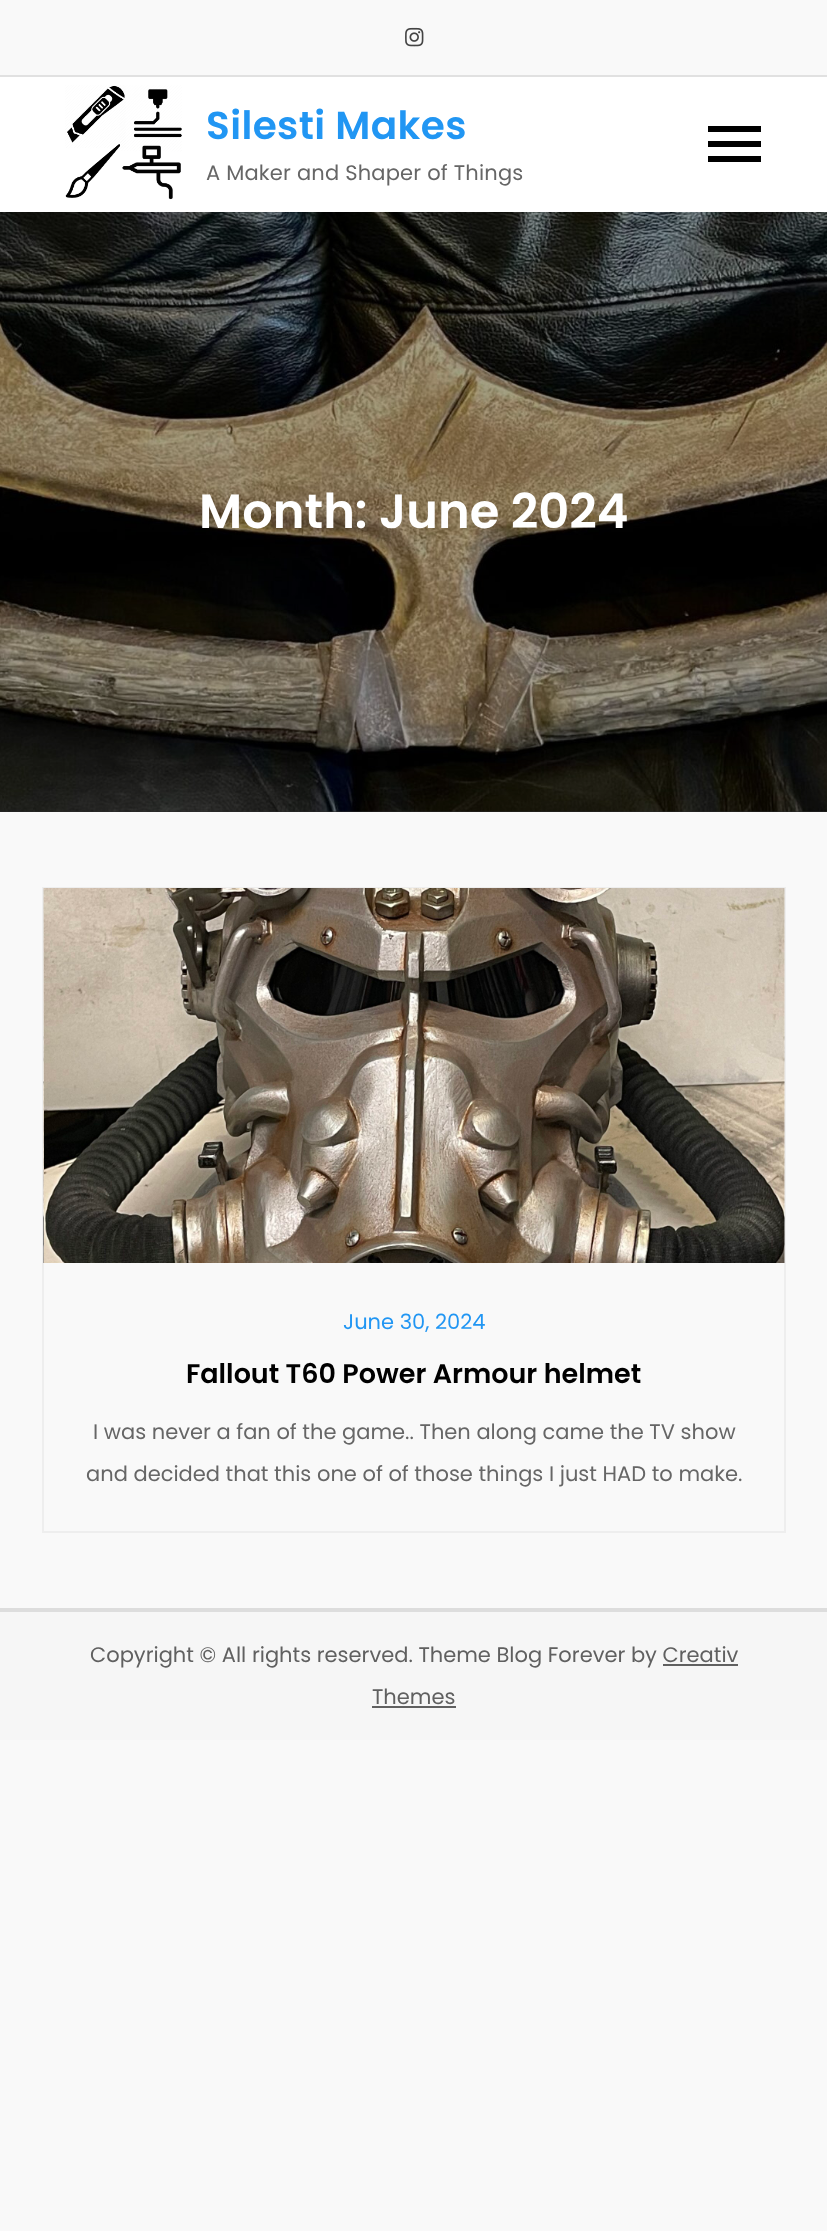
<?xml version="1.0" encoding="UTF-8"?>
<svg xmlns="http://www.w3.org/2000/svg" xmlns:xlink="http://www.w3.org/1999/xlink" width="827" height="2231">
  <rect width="100%" height="100%" fill="#f9f9f9" />
  <rect y="75" width="827" height="2" fill="#e1e1e1" />
  <image x="405" y="27" width="19" height="20" xlink:href="image1.png" />
  <rect y="77" width="827" height="135" fill="#ffffff" />
  <image x="65" y="85" width="117" height="115" xlink:href="image2.png" />
  <rect x="708" y="141" width="53" height="6" fill="#000000" />
  <rect x="708" y="126" width="53" height="6" fill="#000000" />
  <rect x="708" y="156" width="53" height="6" fill="#000000" />
  <rect y="811" width="827" height="1" fill="#292929" />
  <image x="0" y="212" width="827" height="600" xlink:href="image3.png" />
  <rect x="43" y="888" width="742" height="644" fill="none" stroke="#eeeeee" stroke-width="2" />
  <image x="43" y="888" width="742" height="375" xlink:href="image4.png" />
  <rect y="1612" width="827" height="128" fill="#f6f6f6" />
  <rect y="1608" width="827" height="4" fill="#dddddd" />
  <rect x="663" y="1664" width="75" height="2" fill="#606060" />
  <rect x="372" y="1706" width="84" height="2" fill="#606060" />
  <text x="206" y="139" style="font-family: Poppins; font-size: 39px; font-weight: 600; letter-spacing: 0.4px; fill: #2196f3">Silesti Makes</text>
  <text x="206" y="180" style="font-family: Poppins; font-size: 21px; letter-spacing: 0.2px; fill: #666666">A Maker and Shaper of Things</text>
  <text x="199" y="528" style="font-family: Poppins; font-size: 48px; font-weight: 600; fill: #ffffff">Month: June 2024</text>
  <text x="343" y="1329" style="font-family: Poppins; font-size: 21px; fill: #2196f3">June 30, 2024</text>
  <text x="186" y="1383" style="font-family: Poppins; font-size: 27px; font-weight: 600; fill: #000000">Fallout T60 Power Armour helmet</text>
  <text x="93" y="1439" style="font-family: Poppins; font-size: 21px; fill: #666666">I was never a fan of the game.. Then along came the TV show</text>
  <text x="86" y="1481" style="font-family: Poppins; font-size: 21px; fill: #666666">and decided that this one of of those things I just HAD to make.</text>
  <text x="90" y="1662" style="font-family: Poppins; font-size: 21px; fill: #606060">Copyright © All rights reserved. Theme Blog Forever by Creativ</text>
  <text x="372" y="1704" style="font-family: Poppins; font-size: 21px; fill: #606060">Themes</text>
</svg>
